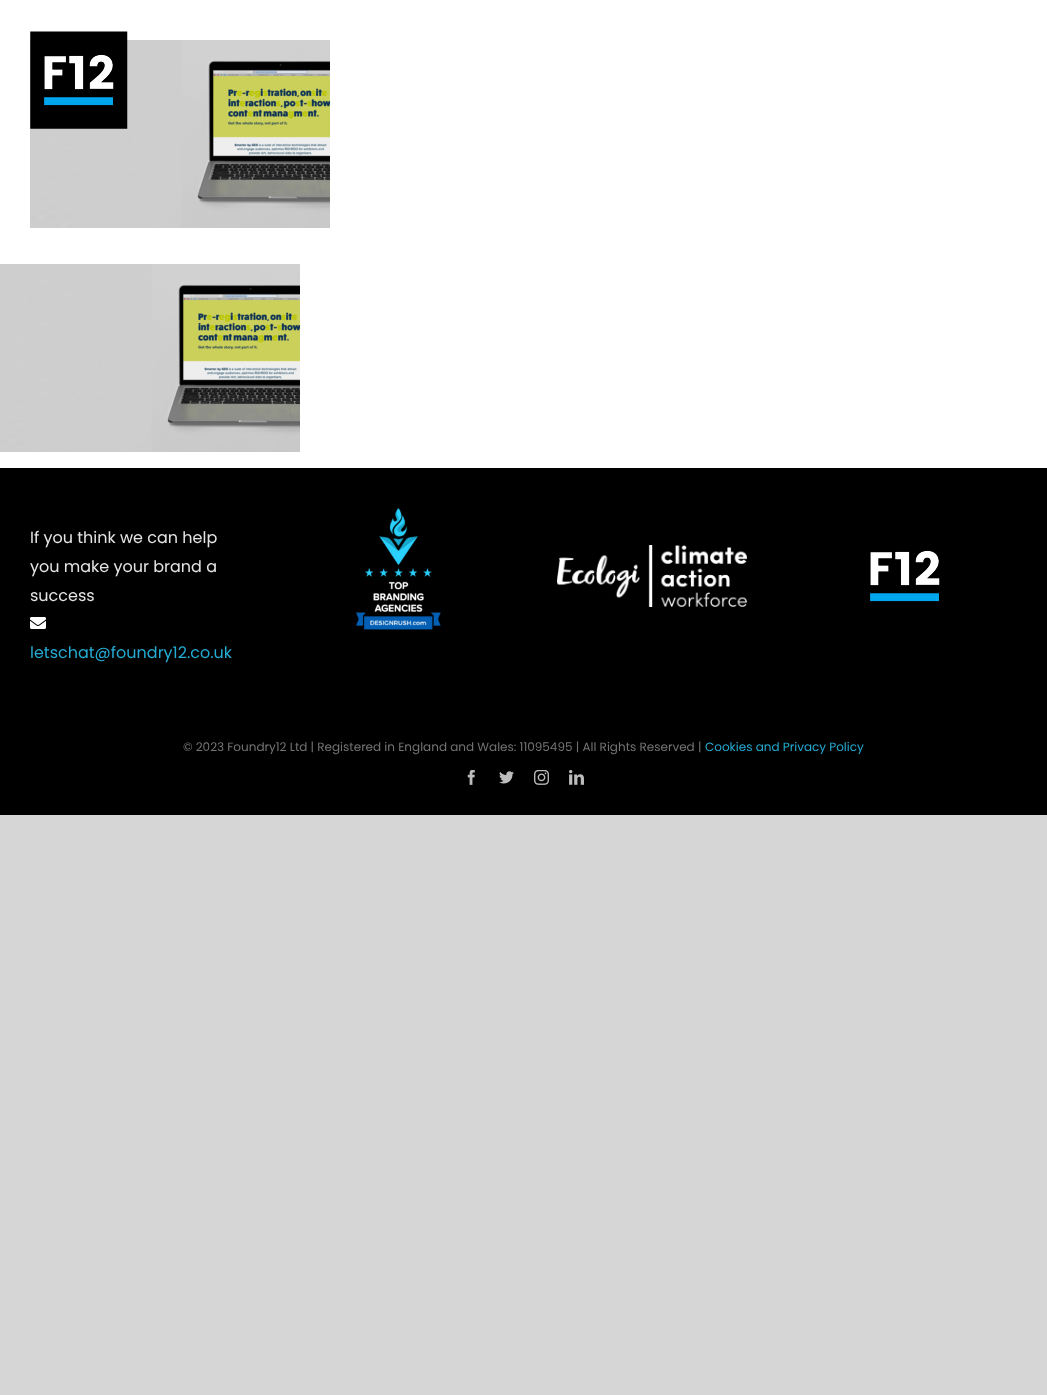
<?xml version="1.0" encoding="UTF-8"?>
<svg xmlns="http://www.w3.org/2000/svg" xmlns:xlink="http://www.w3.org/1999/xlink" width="1047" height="1395">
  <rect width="100%" height="100%" fill="#d7d6d6" />
  <rect width="1047" height="468" fill="#ffffff" />
  <image x="30" y="40" width="300" height="188" xlink:href="image2.png" />
  <image x="30" y="31" width="98" height="98" xlink:href="image1.png" />
  <image x="0" y="264" width="300" height="188" xlink:href="image2.png" />
  <rect y="468" width="1047" height="347" fill="#000000" />
  <image x="30" y="617" width="16" height="12" xlink:href="image3.png" />
  <image x="356" y="508" width="85" height="122" xlink:href="image4.png" />
  <image x="557" y="545" width="190" height="62" xlink:href="image5.png" />
  <image x="870" y="550" width="70" height="52" xlink:href="image6.png" />
  <image x="467" y="770" width="8" height="15" xlink:href="image7.png" />
  <image x="499" y="771" width="15" height="13" xlink:href="image8.png" />
  <image x="534" y="770" width="15" height="15" xlink:href="image9.png" />
  <image x="569" y="770" width="15" height="15" xlink:href="image10.png" />
  <text x="30" y="543" style="font-family: Poppins; font-size: 16px; fill: #e4e4e4">If you think we can help</text>
  <text x="30" y="572" style="font-family: Poppins; font-size: 16px; fill: #e4e4e4">you make your brand a</text>
  <text x="30" y="601" style="font-family: Poppins; font-size: 16px; fill: #e4e4e4">success</text>
  <text x="30" y="658" style="font-family: Poppins; font-size: 16px; fill: #25abd1">letschat@foundry12.co.uk</text>
  <text x="183" y="751" style="font-family: Poppins; font-size: 12px; fill: #747474">© 2023 Foundry12 Ltd | Registered in England and Wales: 11095495 | All Rights Reserved |</text>
  <text x="705" y="751" style="font-family: Poppins; font-size: 12px; fill: #25abd1">Cookies and Privacy Policy</text>
</svg>
